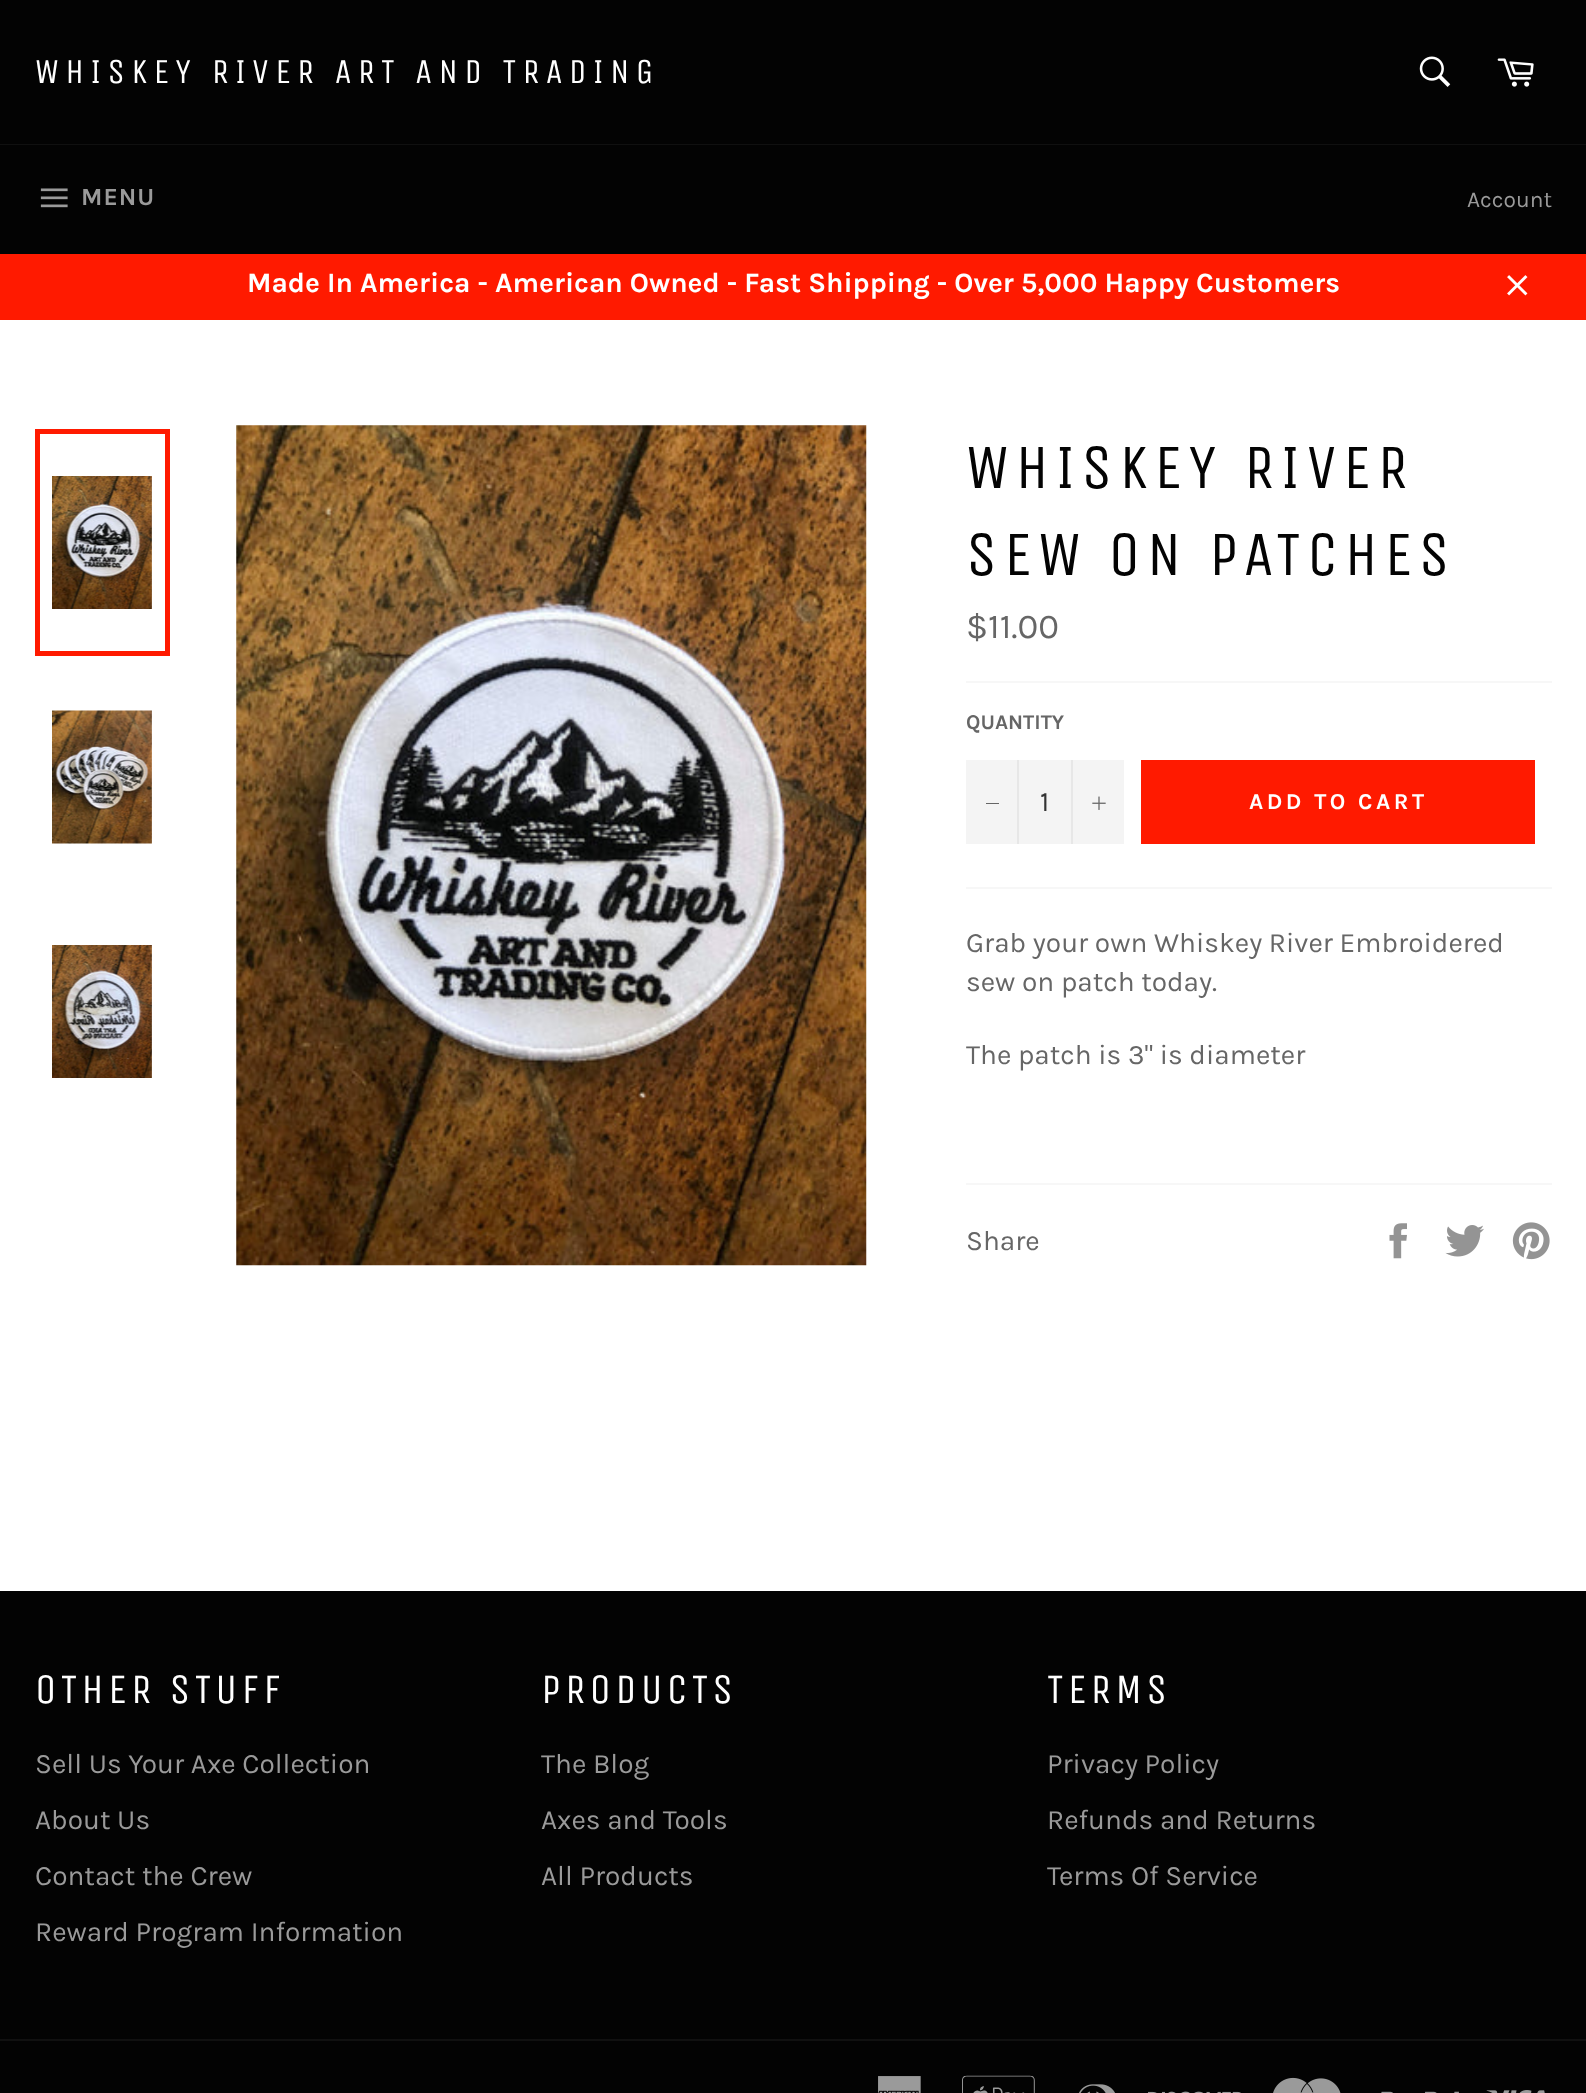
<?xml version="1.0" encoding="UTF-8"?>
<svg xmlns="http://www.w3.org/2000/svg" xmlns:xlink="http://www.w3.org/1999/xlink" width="1586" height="2093">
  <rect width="100%" height="100%" fill="#030303" />
  <image x="1419" y="56" width="32" height="31" xlink:href="image1.png" />
  <image x="1497" y="58" width="37" height="29" xlink:href="image2.png" />
  <rect y="144" width="1586" height="1" fill="#101010" />
  <image x="40" y="188" width="28" height="20" xlink:href="image3.png" />
  <rect y="254" width="1586" height="66" fill="#ff1a00" />
  <image x="1507" y="275" width="21" height="21" xlink:href="image4.png" />
  <rect y="320" width="1586" height="1271" fill="#ffffff" />
  <image x="52" y="476" width="100" height="133" xlink:href="image5.png" />
  <rect x="37.5" y="431.5" width="130" height="222" fill="none" stroke="#ff1a00" stroke-width="5" />
  <image x="52" y="710" width="100" height="134" xlink:href="image6.png" />
  <image x="52" y="945" width="100" height="133" xlink:href="image7.png" />
  <image x="236" y="425" width="631" height="841" xlink:href="image8.png" />
  <rect x="966" y="681" width="586" height="2" fill="#f7f7f7" />
  <rect x="966" y="760" width="158" height="84" fill="#f4f4f4" />
  <rect x="1017" y="760" width="2" height="84" fill="#e7e7e7" />
  <rect x="986" y="803" width="13" height="1" fill="#666666" />
  <rect x="1071" y="760" width="2" height="84" fill="#e7e7e7" />
  <image x="1092" y="796" width="14" height="14" xlink:href="image9.png" />
  <rect x="1141" y="760" width="394" height="84" fill="#ff1a00" />
  <rect x="966" y="887" width="586" height="2" fill="#f7f7f7" />
  <rect x="966" y="1183" width="586" height="2" fill="#f7f7f7" />
  <image x="1389" y="1223" width="18" height="36" xlink:href="image10.png" />
  <image x="1445" y="1225" width="39" height="32" xlink:href="image11.png" />
  <image x="1512" y="1222" width="38" height="38" xlink:href="image12.png" />
  <rect y="2039" width="1586" height="2" fill="#101010" />
  <image x="878" y="2076" width="43" height="17" xlink:href="image13.png" />
  <image x="962" y="2075" width="73" height="18" xlink:href="image14.png" />
  <image x="1079" y="2084" width="36" height="9" xlink:href="image15.png" />
  <image x="1148" y="2091" width="93" height="2" xlink:href="image16.png" />
  <image x="1273" y="2077" width="68" height="16" xlink:href="image17.png" />
  <image x="1381" y="2091" width="78" height="2" xlink:href="image18.png" />
  <image x="1486" y="2090" width="59" height="3" xlink:href="image19.png" />
  <text x="35" y="83" style="font-family: Unica One; font-size: 35px; letter-spacing: 6.3px; fill: #ffffff">WHISKEY RIVER ART AND TRADING</text>
  <text x="81" y="205" style="font-family: Karla; font-size: 24.5px; font-weight: bold; letter-spacing: 1px; fill: #9a9a9a">MENU</text>
  <text x="1467" y="207" style="font-family: Karla; font-size: 22.75px; fill: #9a9a9a">Account</text>
  <text x="247" y="292" style="font-family: Karla; font-size: 28px; font-weight: bold; fill: #ffffff">Made In America - American Owned - Fast Shipping - Over 5,000 Happy Customers</text>
  <text x="966" y="488" style="font-family: Unica One; font-size: 63px; letter-spacing: 6.3px; fill: #030303">WHISKEY RIVER</text>
  <text x="966" y="575" style="font-family: Unica One; font-size: 63px; letter-spacing: 6.3px; fill: #030303">SEW ON PATCHES</text>
  <text x="966" y="638" style="font-family: Karla; font-size: 35px; fill: #666666">$11.00</text>
  <text x="966" y="729" style="font-family: Karla; font-size: 21px; font-weight: bold; fill: #666666">QUANTITY</text>
  <text x="1040" y="811" style="font-family: Karla; font-size: 28px; fill: #333333">1</text>
  <text x="1249" y="809" style="font-family: Karla; font-size: 22.75px; font-weight: bold; letter-spacing: 3.5px; fill: #ffffff">ADD TO CART</text>
  <text x="966" y="952" style="font-family: Karla; font-size: 28px; fill: #666666">Grab your own Whiskey River Embroidered</text>
  <text x="966" y="991" style="font-family: Karla; font-size: 28px; fill: #666666">sew on patch today.</text>
  <text x="966" y="1064" style="font-family: Karla; font-size: 28px; fill: #666666">The patch is 3" is diameter</text>
  <text x="966" y="1250" style="font-family: Karla; font-size: 28px; fill: #666666">Share</text>
  <text x="35" y="1703" style="font-family: Unica One; font-size: 42px; letter-spacing: 4.25px; fill: #ffffff">OTHER STUFF</text>
  <text x="35" y="1773" style="font-family: Karla; font-size: 28px; fill: #9a9a9a">Sell Us Your Axe Collection</text>
  <text x="35" y="1829" style="font-family: Karla; font-size: 28px; fill: #9a9a9a">About Us</text>
  <text x="35" y="1885" style="font-family: Karla; font-size: 28px; fill: #9a9a9a">Contact the Crew</text>
  <text x="35" y="1941" style="font-family: Karla; font-size: 28px; fill: #9a9a9a">Reward Program Information</text>
  <text x="541" y="1703" style="font-family: Unica One; font-size: 42px; letter-spacing: 4.25px; fill: #ffffff">PRODUCTS</text>
  <text x="541" y="1773" style="font-family: Karla; font-size: 28px; fill: #9a9a9a">The Blog</text>
  <text x="541" y="1829" style="font-family: Karla; font-size: 28px; fill: #9a9a9a">Axes and Tools</text>
  <text x="541" y="1885" style="font-family: Karla; font-size: 28px; fill: #9a9a9a">All Products</text>
  <text x="1047" y="1703" style="font-family: Unica One; font-size: 42px; letter-spacing: 4.25px; fill: #ffffff">TERMS</text>
  <text x="1047" y="1773" style="font-family: Karla; font-size: 28px; fill: #9a9a9a">Privacy Policy</text>
  <text x="1047" y="1829" style="font-family: Karla; font-size: 28px; fill: #9a9a9a">Refunds and Returns</text>
  <text x="1047" y="1885" style="font-family: Karla; font-size: 28px; fill: #9a9a9a">Terms Of Service</text>
</svg>
